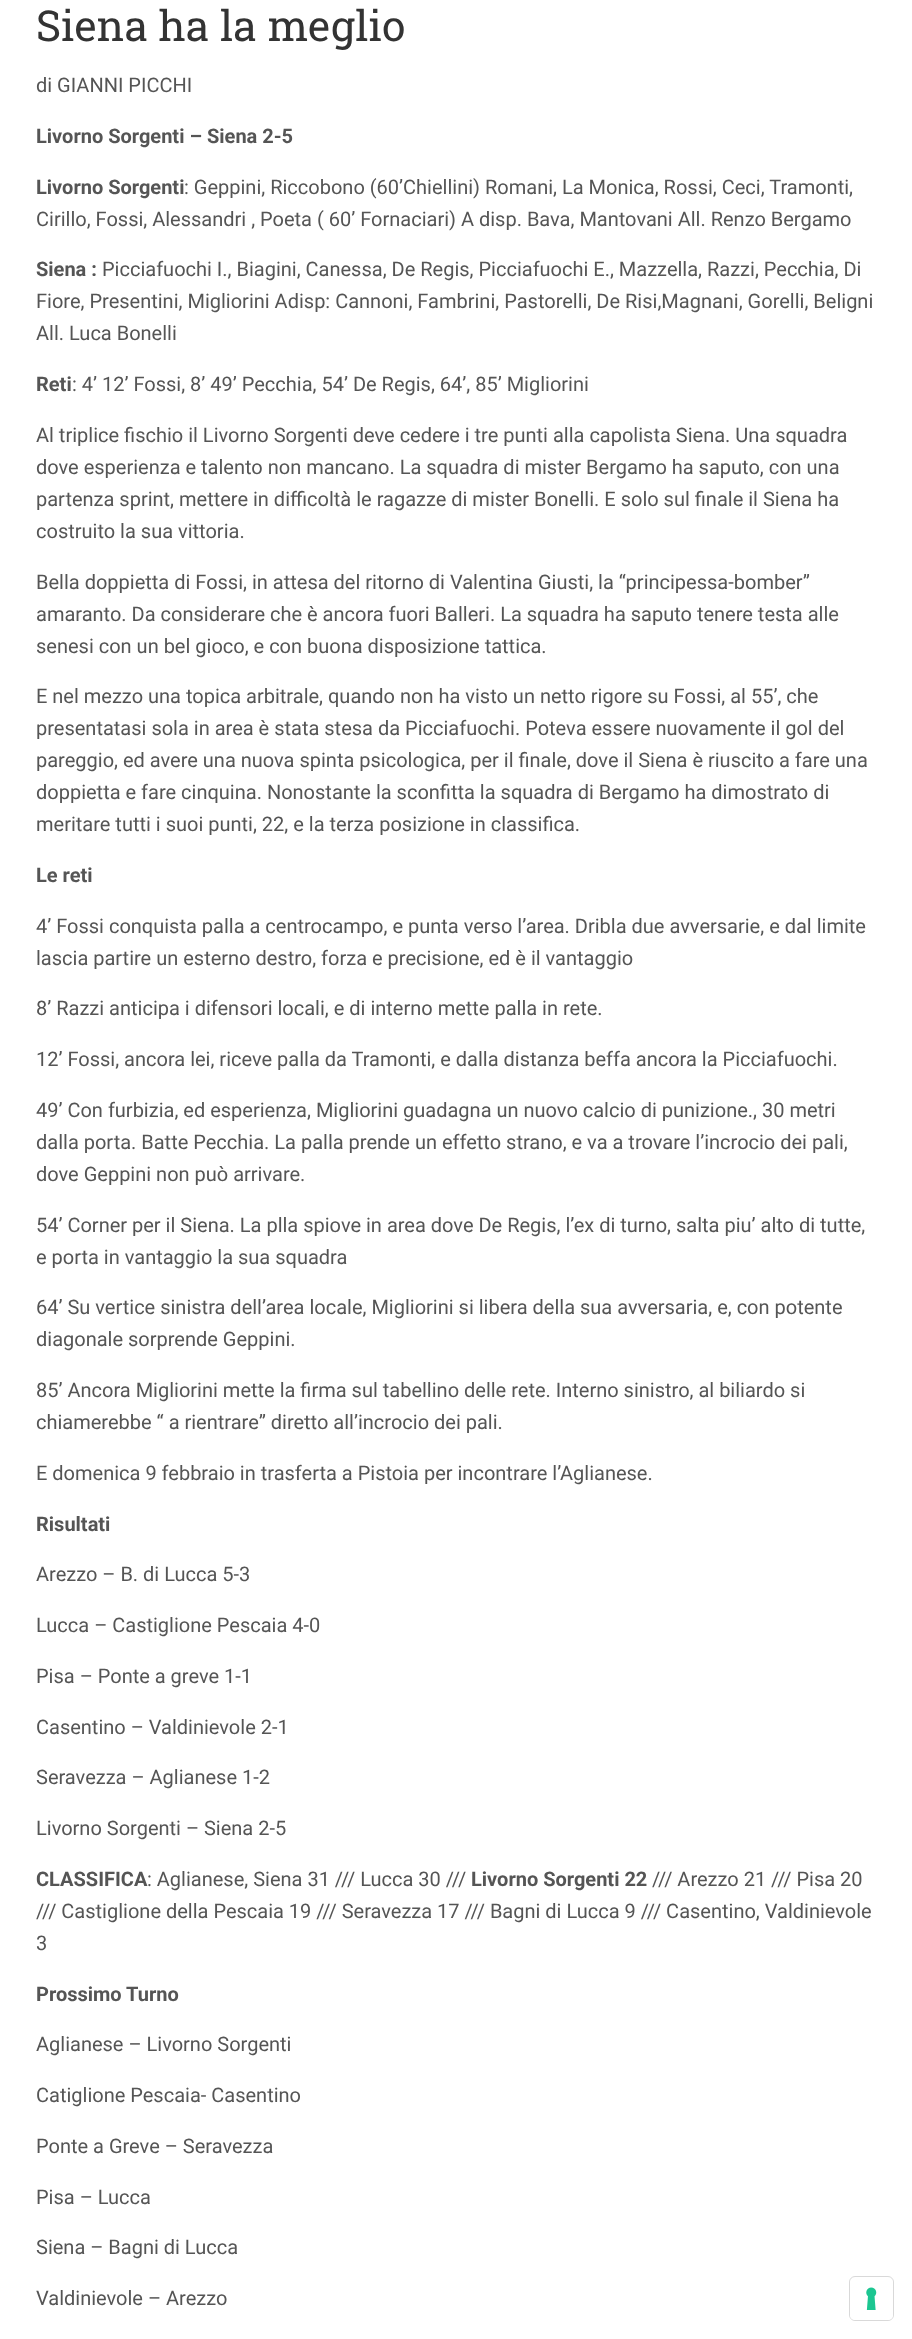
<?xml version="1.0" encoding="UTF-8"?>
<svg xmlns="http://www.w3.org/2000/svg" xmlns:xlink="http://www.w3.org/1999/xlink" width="912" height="2339">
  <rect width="100%" height="100%" fill="#ffffff" />
  <rect x="849.5" y="2276.5" width="44" height="44" rx="5.5" fill="none" stroke="#d9d9d9" />
  <rect x="850" y="2278" width="43" height="42" rx="5" fill="#ffffff" />
  <image x="866" y="2287" width="11" height="23" xlink:href="image1.png" />
  <text x="36" y="41" style="font-family: Roboto Slab; font-size: 42.5px; fill: #333333">Siena ha la meglio</text>
  <text x="36" y="92" style="font-family: Roboto; font-size: 20px; fill: #555555">di GIANNI PICCHI</text>
  <text x="36" y="143" style="font-family: Roboto; font-size: 20px; font-weight: bold; fill: #555555">Livorno Sorgenti – Siena 2-5</text>
  <text x="36" y="194" style="font-family: Roboto; font-size: 20px; font-weight: bold; fill: #555555">Livorno Sorgenti</text>
  <text x="184" y="194" style="font-family: Roboto; font-size: 20px; fill: #555555">: Geppini, Riccobono (60’Chiellini) Romani, La Monica, Rossi, Ceci, Tramonti,</text>
  <text x="36" y="226" style="font-family: Roboto; font-size: 20px; fill: #555555">Cirillo, Fossi, Alessandri , Poeta ( 60’ Fornaciari) A disp. Bava, Mantovani All. Renzo Bergamo</text>
  <text x="36" y="276" style="font-family: Roboto; font-size: 20px; font-weight: bold; fill: #555555">Siena :</text>
  <text x="102" y="276" style="font-family: Roboto; font-size: 20px; fill: #555555">Picciafuochi I., Biagini, Canessa, De Regis, Picciafuochi E., Mazzella, Razzi, Pecchia, Di</text>
  <text x="36" y="308" style="font-family: Roboto; font-size: 20px; fill: #555555">Fiore, Presentini, Migliorini Adisp: Cannoni, Fambrini, Pastorelli, De Risi,Magnani, Gorelli, Beligni</text>
  <text x="36" y="340" style="font-family: Roboto; font-size: 20px; fill: #555555">All. Luca Bonelli</text>
  <text x="36" y="391" style="font-family: Roboto; font-size: 20px; font-weight: bold; fill: #555555">Reti</text>
  <text x="72" y="391" style="font-family: Roboto; font-size: 20px; fill: #555555">: 4’ 12’ Fossi, 8’ 49’ Pecchia, 54’ De Regis, 64’, 85’ Migliorini</text>
  <text x="36" y="442" style="font-family: Roboto; font-size: 20px; fill: #555555">Al triplice fischio il Livorno Sorgenti deve cedere i tre punti alla capolista Siena. Una squadra</text>
  <text x="36" y="474" style="font-family: Roboto; font-size: 20px; fill: #555555">dove esperienza e talento non mancano. La squadra di mister Bergamo ha saputo, con una</text>
  <text x="36" y="506" style="font-family: Roboto; font-size: 20px; fill: #555555">partenza sprint, mettere in difficoltà le ragazze di mister Bonelli. E solo sul finale il Siena ha</text>
  <text x="36" y="538" style="font-family: Roboto; font-size: 20px; fill: #555555">costruito la sua vittoria.</text>
  <text x="36" y="589" style="font-family: Roboto; font-size: 20px; fill: #555555">Bella doppietta di Fossi, in attesa del ritorno di Valentina Giusti, la “principessa-bomber”</text>
  <text x="36" y="621" style="font-family: Roboto; font-size: 20px; fill: #555555">amaranto. Da considerare che è ancora fuori Balleri. La squadra ha saputo tenere testa alle</text>
  <text x="36" y="653" style="font-family: Roboto; font-size: 20px; fill: #555555">senesi con un bel gioco, e con buona disposizione tattica.</text>
  <text x="36" y="703" style="font-family: Roboto; font-size: 20px; fill: #555555">E nel mezzo una topica arbitrale, quando non ha visto un netto rigore su Fossi, al 55’, che</text>
  <text x="36" y="735" style="font-family: Roboto; font-size: 20px; fill: #555555">presentatasi sola in area è stata stesa da Picciafuochi. Poteva essere nuovamente il gol del</text>
  <text x="36" y="767" style="font-family: Roboto; font-size: 20px; fill: #555555">pareggio, ed avere una nuova spinta psicologica, per il finale, dove il Siena è riuscito a fare una</text>
  <text x="36" y="799" style="font-family: Roboto; font-size: 20px; fill: #555555">doppietta e fare cinquina. Nonostante la sconfitta la squadra di Bergamo ha dimostrato di</text>
  <text x="36" y="831" style="font-family: Roboto; font-size: 20px; fill: #555555">meritare tutti i suoi punti, 22, e la terza posizione in classifica.</text>
  <text x="36" y="882" style="font-family: Roboto; font-size: 20px; font-weight: bold; fill: #555555">Le reti</text>
  <text x="36" y="933" style="font-family: Roboto; font-size: 20px; fill: #555555">4’ Fossi conquista palla a centrocampo, e punta verso l’area. Dribla due avversarie, e dal limite</text>
  <text x="36" y="965" style="font-family: Roboto; font-size: 20px; fill: #555555">lascia partire un esterno destro, forza e precisione, ed è il vantaggio</text>
  <text x="36" y="1015" style="font-family: Roboto; font-size: 20px; fill: #555555">8’ Razzi anticipa i difensori locali, e di interno mette palla in rete.</text>
  <text x="36" y="1066" style="font-family: Roboto; font-size: 20px; fill: #555555">12’ Fossi, ancora lei, riceve palla da Tramonti, e dalla distanza beffa ancora la Picciafuochi.</text>
  <text x="36" y="1117" style="font-family: Roboto; font-size: 20px; fill: #555555">49’ Con furbizia, ed esperienza, Migliorini guadagna un nuovo calcio di punizione., 30 metri</text>
  <text x="36" y="1149" style="font-family: Roboto; font-size: 20px; fill: #555555">dalla porta. Batte Pecchia. La palla prende un effetto strano, e va a trovare l’incrocio dei pali,</text>
  <text x="36" y="1181" style="font-family: Roboto; font-size: 20px; fill: #555555">dove Geppini non può arrivare.</text>
  <text x="36" y="1232" style="font-family: Roboto; font-size: 20px; fill: #555555">54’ Corner per il Siena. La plla spiove in area dove De Regis, l’ex di turno, salta piu’ alto di tutte,</text>
  <text x="36" y="1264" style="font-family: Roboto; font-size: 20px; fill: #555555">e porta in vantaggio la sua squadra</text>
  <text x="36" y="1314" style="font-family: Roboto; font-size: 20px; fill: #555555">64’ Su vertice sinistra dell’area locale, Migliorini si libera della sua avversaria, e, con potente</text>
  <text x="36" y="1346" style="font-family: Roboto; font-size: 20px; fill: #555555">diagonale sorprende Geppini.</text>
  <text x="36" y="1397" style="font-family: Roboto; font-size: 20px; fill: #555555">85’ Ancora Migliorini mette la firma sul tabellino delle rete. Interno sinistro, al biliardo si</text>
  <text x="36" y="1429" style="font-family: Roboto; font-size: 20px; fill: #555555">chiamerebbe “ a rientrare” diretto all’incrocio dei pali.</text>
  <text x="36" y="1480" style="font-family: Roboto; font-size: 20px; fill: #555555">E domenica 9 febbraio in trasferta a Pistoia per incontrare l’Aglianese.</text>
  <text x="36" y="1531" style="font-family: Roboto; font-size: 20px; font-weight: bold; fill: #555555">Risultati</text>
  <text x="36" y="1581" style="font-family: Roboto; font-size: 20px; fill: #555555">Arezzo – B. di Lucca 5-3</text>
  <text x="36" y="1632" style="font-family: Roboto; font-size: 20px; fill: #555555">Lucca – Castiglione Pescaia 4-0</text>
  <text x="36" y="1683" style="font-family: Roboto; font-size: 20px; fill: #555555">Pisa – Ponte a greve 1-1</text>
  <text x="36" y="1734" style="font-family: Roboto; font-size: 20px; fill: #555555">Casentino – Valdinievole 2-1</text>
  <text x="36" y="1784" style="font-family: Roboto; font-size: 20px; fill: #555555">Seravezza – Aglianese 1-2</text>
  <text x="36" y="1835" style="font-family: Roboto; font-size: 20px; fill: #555555">Livorno Sorgenti – Siena 2-5</text>
  <text x="36" y="1886" style="font-family: Roboto; font-size: 20px; font-weight: bold; fill: #555555">CLASSIFICA</text>
  <text x="147" y="1886" style="font-family: Roboto; font-size: 20px; fill: #555555">: Aglianese, Siena 31 /// Lucca 30 ///</text>
  <text x="471" y="1886" style="font-family: Roboto; font-size: 20px; font-weight: bold; fill: #555555">Livorno Sorgenti 22</text>
  <text x="652" y="1886" style="font-family: Roboto; font-size: 20px; fill: #555555">/// Arezzo 21 /// Pisa 20</text>
  <text x="36" y="1918" style="font-family: Roboto; font-size: 20px; fill: #555555">/// Castiglione della Pescaia 19 /// Seravezza 17 /// Bagni di Lucca 9 /// Casentino, Valdinievole</text>
  <text x="36" y="1950" style="font-family: Roboto; font-size: 20px; fill: #555555">3</text>
  <text x="36" y="2001" style="font-family: Roboto; font-size: 20px; font-weight: bold; fill: #555555">Prossimo Turno</text>
  <text x="36" y="2051" style="font-family: Roboto; font-size: 20px; fill: #555555">Aglianese – Livorno Sorgenti</text>
  <text x="36" y="2102" style="font-family: Roboto; font-size: 20px; fill: #555555">Catiglione Pescaia- Casentino</text>
  <text x="36" y="2153" style="font-family: Roboto; font-size: 20px; fill: #555555">Ponte a Greve – Seravezza</text>
  <text x="36" y="2204" style="font-family: Roboto; font-size: 20px; fill: #555555">Pisa – Lucca</text>
  <text x="36" y="2254" style="font-family: Roboto; font-size: 20px; fill: #555555">Siena – Bagni di Lucca</text>
  <text x="36" y="2305" style="font-family: Roboto; font-size: 20px; fill: #555555">Valdinievole – Arezzo</text>
</svg>
